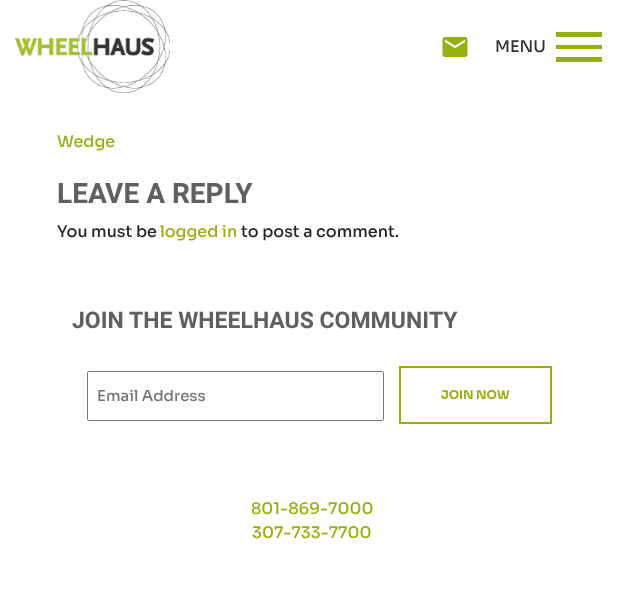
<?xml version="1.0" encoding="UTF-8"?>
<svg xmlns="http://www.w3.org/2000/svg" xmlns:xlink="http://www.w3.org/1999/xlink" width="624" height="591">
  <rect width="100%" height="100%" fill="#ffffff" />
  <image x="15" y="0" width="155" height="93" xlink:href="image1.png" />
  <image x="442" y="37" width="26" height="20" xlink:href="image2.png" />
  <path d="M 556 32 h 46 v 5 h -46 z m 0 17 v -4 h 46 v 4 z m 0 13 v -5 h 46 v 5 z" fill="#93b210" />
  <rect x="87.5" y="371.5" width="296" height="49" rx="1.5" fill="none" stroke="#767676" />
  <rect x="400" y="367" width="151" height="56" fill="none" stroke="#93b210" stroke-width="2" />
  <text x="495" y="52" style="font-family: Sora; font-size: 16px; font-weight: 500; fill: #333333">MENU</text>
  <text x="57" y="147" style="font-family: Sora; font-size: 16px; font-weight: 500; fill: #93b210">Wedge</text>
  <text x="57" y="203" style="font-family: Heebo; font-size: 28px; font-weight: bold; fill: #606060">LEAVE A REPLY</text>
  <text x="57" y="237" style="font-family: Sora; font-size: 16px; font-weight: 500; fill: #212529">You must be</text>
  <text x="160" y="237" style="font-family: Sora; font-size: 16px; font-weight: 500; fill: #93b210">logged in</text>
  <text x="241" y="237" style="font-family: Sora; font-size: 16px; font-weight: 500; fill: #212529">to post a comment.</text>
  <text x="72" y="328" style="font-family: Heebo; font-size: 23px; font-weight: bold; fill: #606060">JOIN THE WHEELHAUS COMMUNITY</text>
  <text x="97" y="401" style="font-family: Sora; font-size: 15px; font-weight: 500; fill: #757575">Email Address</text>
  <text x="441" y="399" style="font-family: Sora; font-size: 12px; font-weight: bold; fill: #93b210">JOIN NOW</text>
  <text x="251" y="514" style="font-family: Sora; font-size: 16px; font-weight: 500; fill: #93b210">801-869-7000</text>
  <text x="252" y="538" style="font-family: Sora; font-size: 16px; font-weight: 500; fill: #93b210">307-733-7700</text>
</svg>
